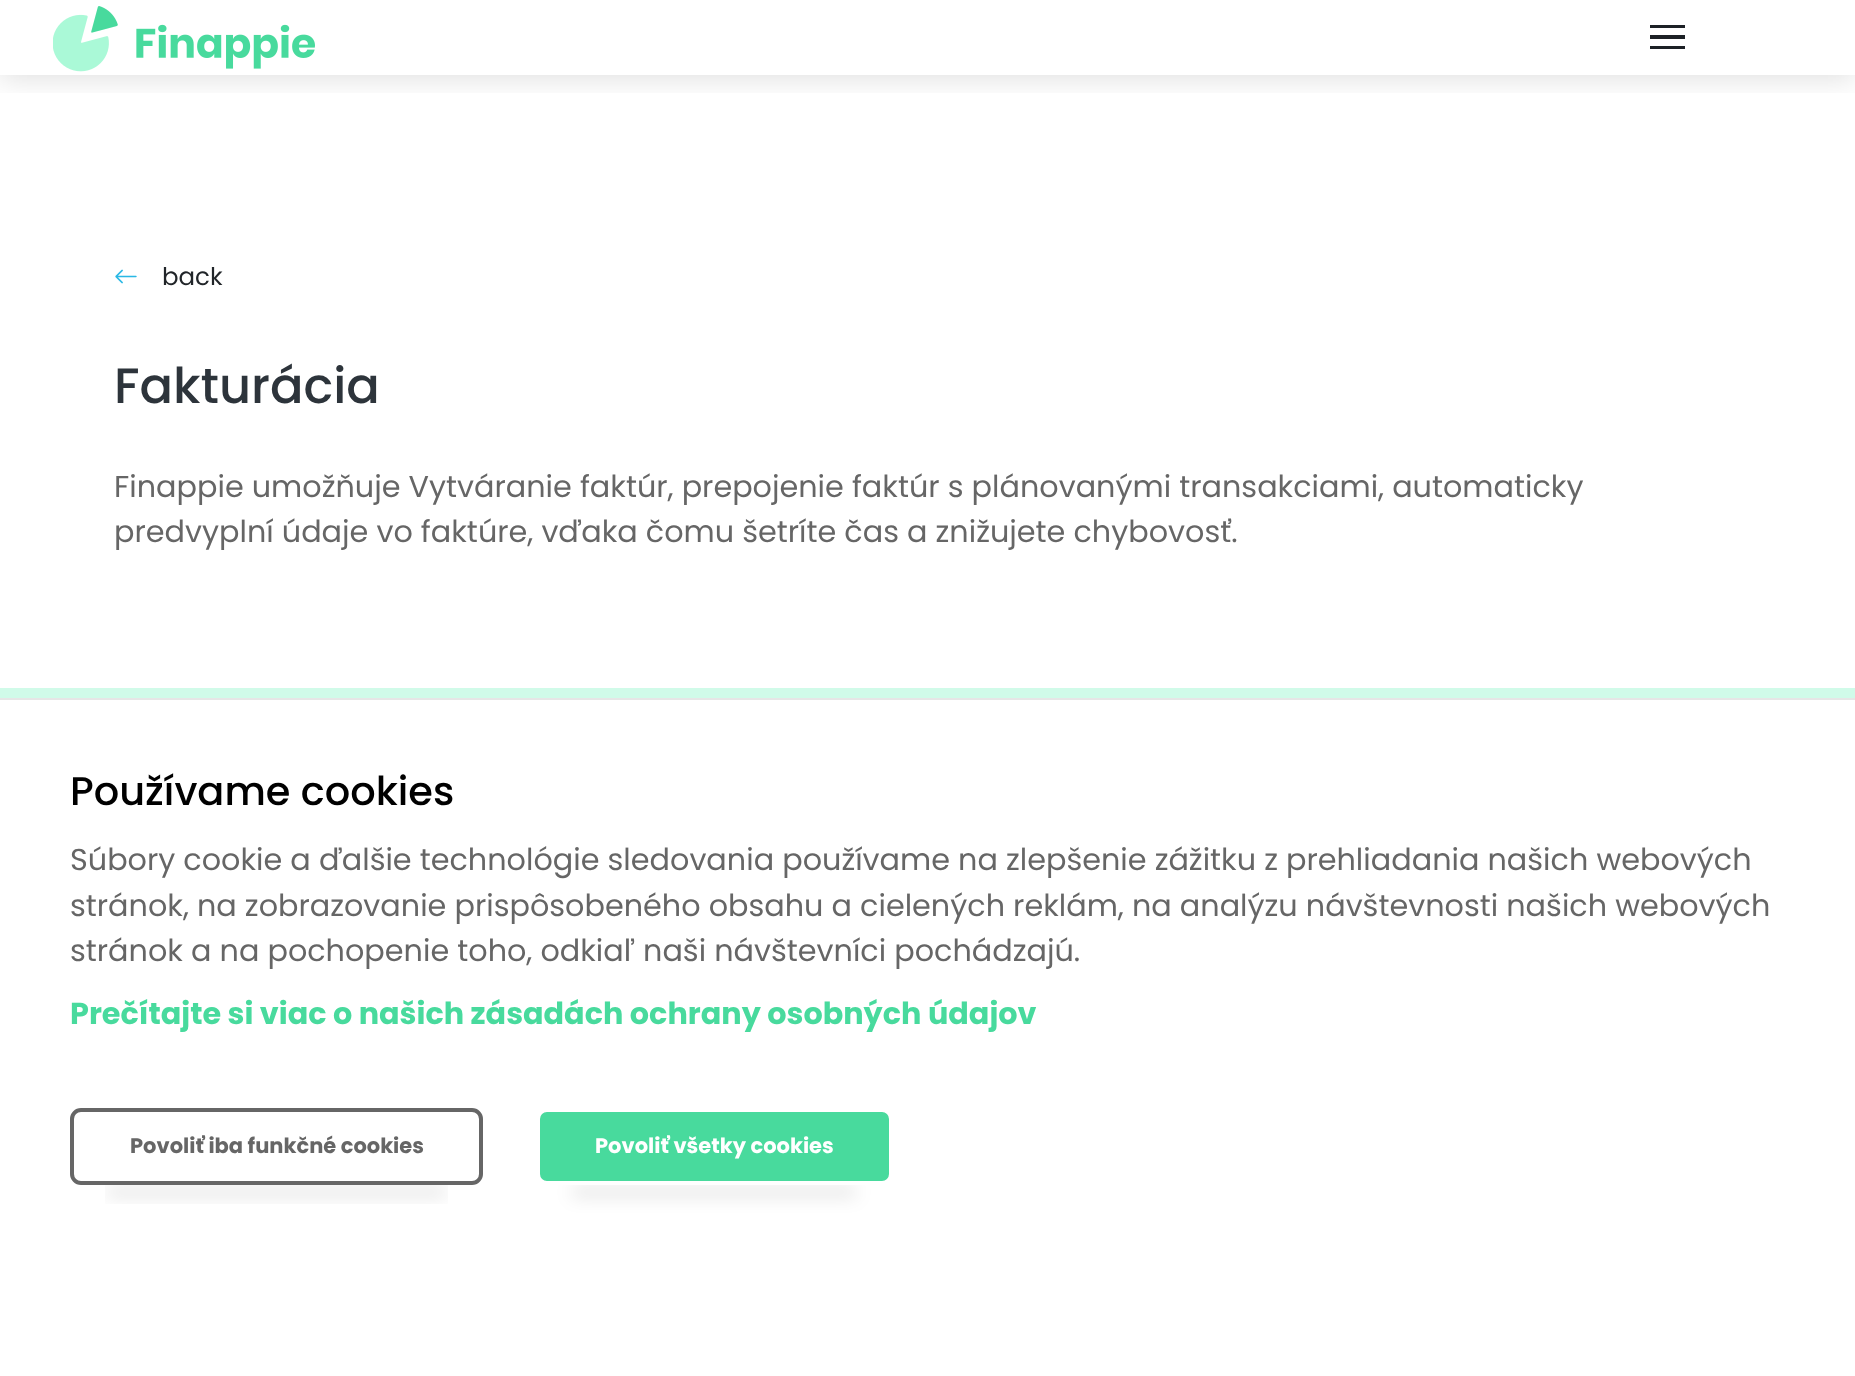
<?xml version="1.0" encoding="UTF-8"?>
<svg xmlns="http://www.w3.org/2000/svg" xmlns:xlink="http://www.w3.org/1999/xlink" width="1855" height="1376">
  <defs>
    <clipPath id="clip1"><rect x="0" y="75" width="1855" height="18" /></clipPath>
    <clipPath id="clip2"><rect x="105" y="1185" width="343" height="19" /></clipPath>
  </defs>
  <rect width="100%" height="100%" fill="#ffffff" />
  <g clip-path="url(#clip1)">
    <rect y="4" width="1855" height="75" fill="#000000" fill-opacity="0.12" filter="blur(14px)" />
  </g>
  <image x="53" y="6" width="262" height="66" xlink:href="image1.png" />
  <rect x="1650" y="25" width="35" height="3" fill="#1d2126" />
  <rect x="1650" y="35" width="35" height="4" fill="#1d2126" />
  <rect x="1650" y="46" width="35" height="3" fill="#1d2126" />
  <image x="115" y="269" width="22" height="15" xlink:href="image2.png" />
  <rect y="688" width="1855" height="10" fill="#d0fbe9" />
  <rect y="698" width="1855" height="2" fill="#e6e6e6" />
  <g clip-path="url(#clip2)">
    <rect x="107" y="1190" width="339" height="4" fill="#000000" fill-opacity="0.28" filter="blur(9px)" />
  </g>
  <rect x="72" y="1110" width="409" height="73" rx="9" fill="none" stroke="#666666" stroke-width="4" />
  <rect x="572" y="1190" width="284" height="4" fill="#000000" fill-opacity="0.28" filter="blur(9px)" />
  <rect x="538" y="1110" width="353" height="73" rx="9" fill="#48da9d" stroke="#ffffff" stroke-width="4" />
  <text x="162" y="285" style="font-family: Poppins; font-size: 24.5px; fill: #212529">back</text>
  <text x="114" y="403" style="font-family: Poppins; font-size: 49.5px; font-weight: 500; fill: #2d343b">Fakturácia</text>
  <text x="114" y="497" style="font-family: Poppins; font-size: 30.28px; fill: #666666">Finappie umožňuje Vytváranie faktúr, prepojenie faktúr s plánovanými transakciami, automaticky</text>
  <text x="114" y="542" style="font-family: Poppins; font-size: 30.28px; fill: #666666">predvyplní údaje vo faktúre, vďaka čomu šetríte čas a znižujete chybovosť.</text>
  <text x="70" y="805" style="font-family: Poppins; font-size: 39.9px; font-weight: 500; fill: #000000">Používame cookies</text>
  <text x="70" y="870" style="font-family: Poppins; font-size: 30.28px; fill: #666666">Súbory cookie a ďalšie technológie sledovania používame na zlepšenie zážitku z prehliadania našich webových</text>
  <text x="70" y="916" style="font-family: Poppins; font-size: 30.28px; fill: #666666">stránok, na zobrazovanie prispôsobeného obsahu a cielených reklám, na analýzu návštevnosti našich webových</text>
  <text x="70" y="961" style="font-family: Poppins; font-size: 30.28px; fill: #666666">stránok a na pochopenie toho, odkiaľ naši návštevníci pochádzajú.</text>
  <text x="70" y="1024" style="font-family: Poppins; font-size: 30.28px; font-weight: bold; fill: #48da9d">Prečítajte si viac o našich zásadách ochrany osobných údajov</text>
  <text x="130" y="1153" style="font-family: Poppins; font-size: 21px; font-weight: bold; fill: #666666">Povoliť iba funkčné cookies</text>
  <text x="595" y="1153" style="font-family: Poppins; font-size: 21px; font-weight: bold; fill: #ffffff">Povoliť všetky cookies</text>
</svg>
